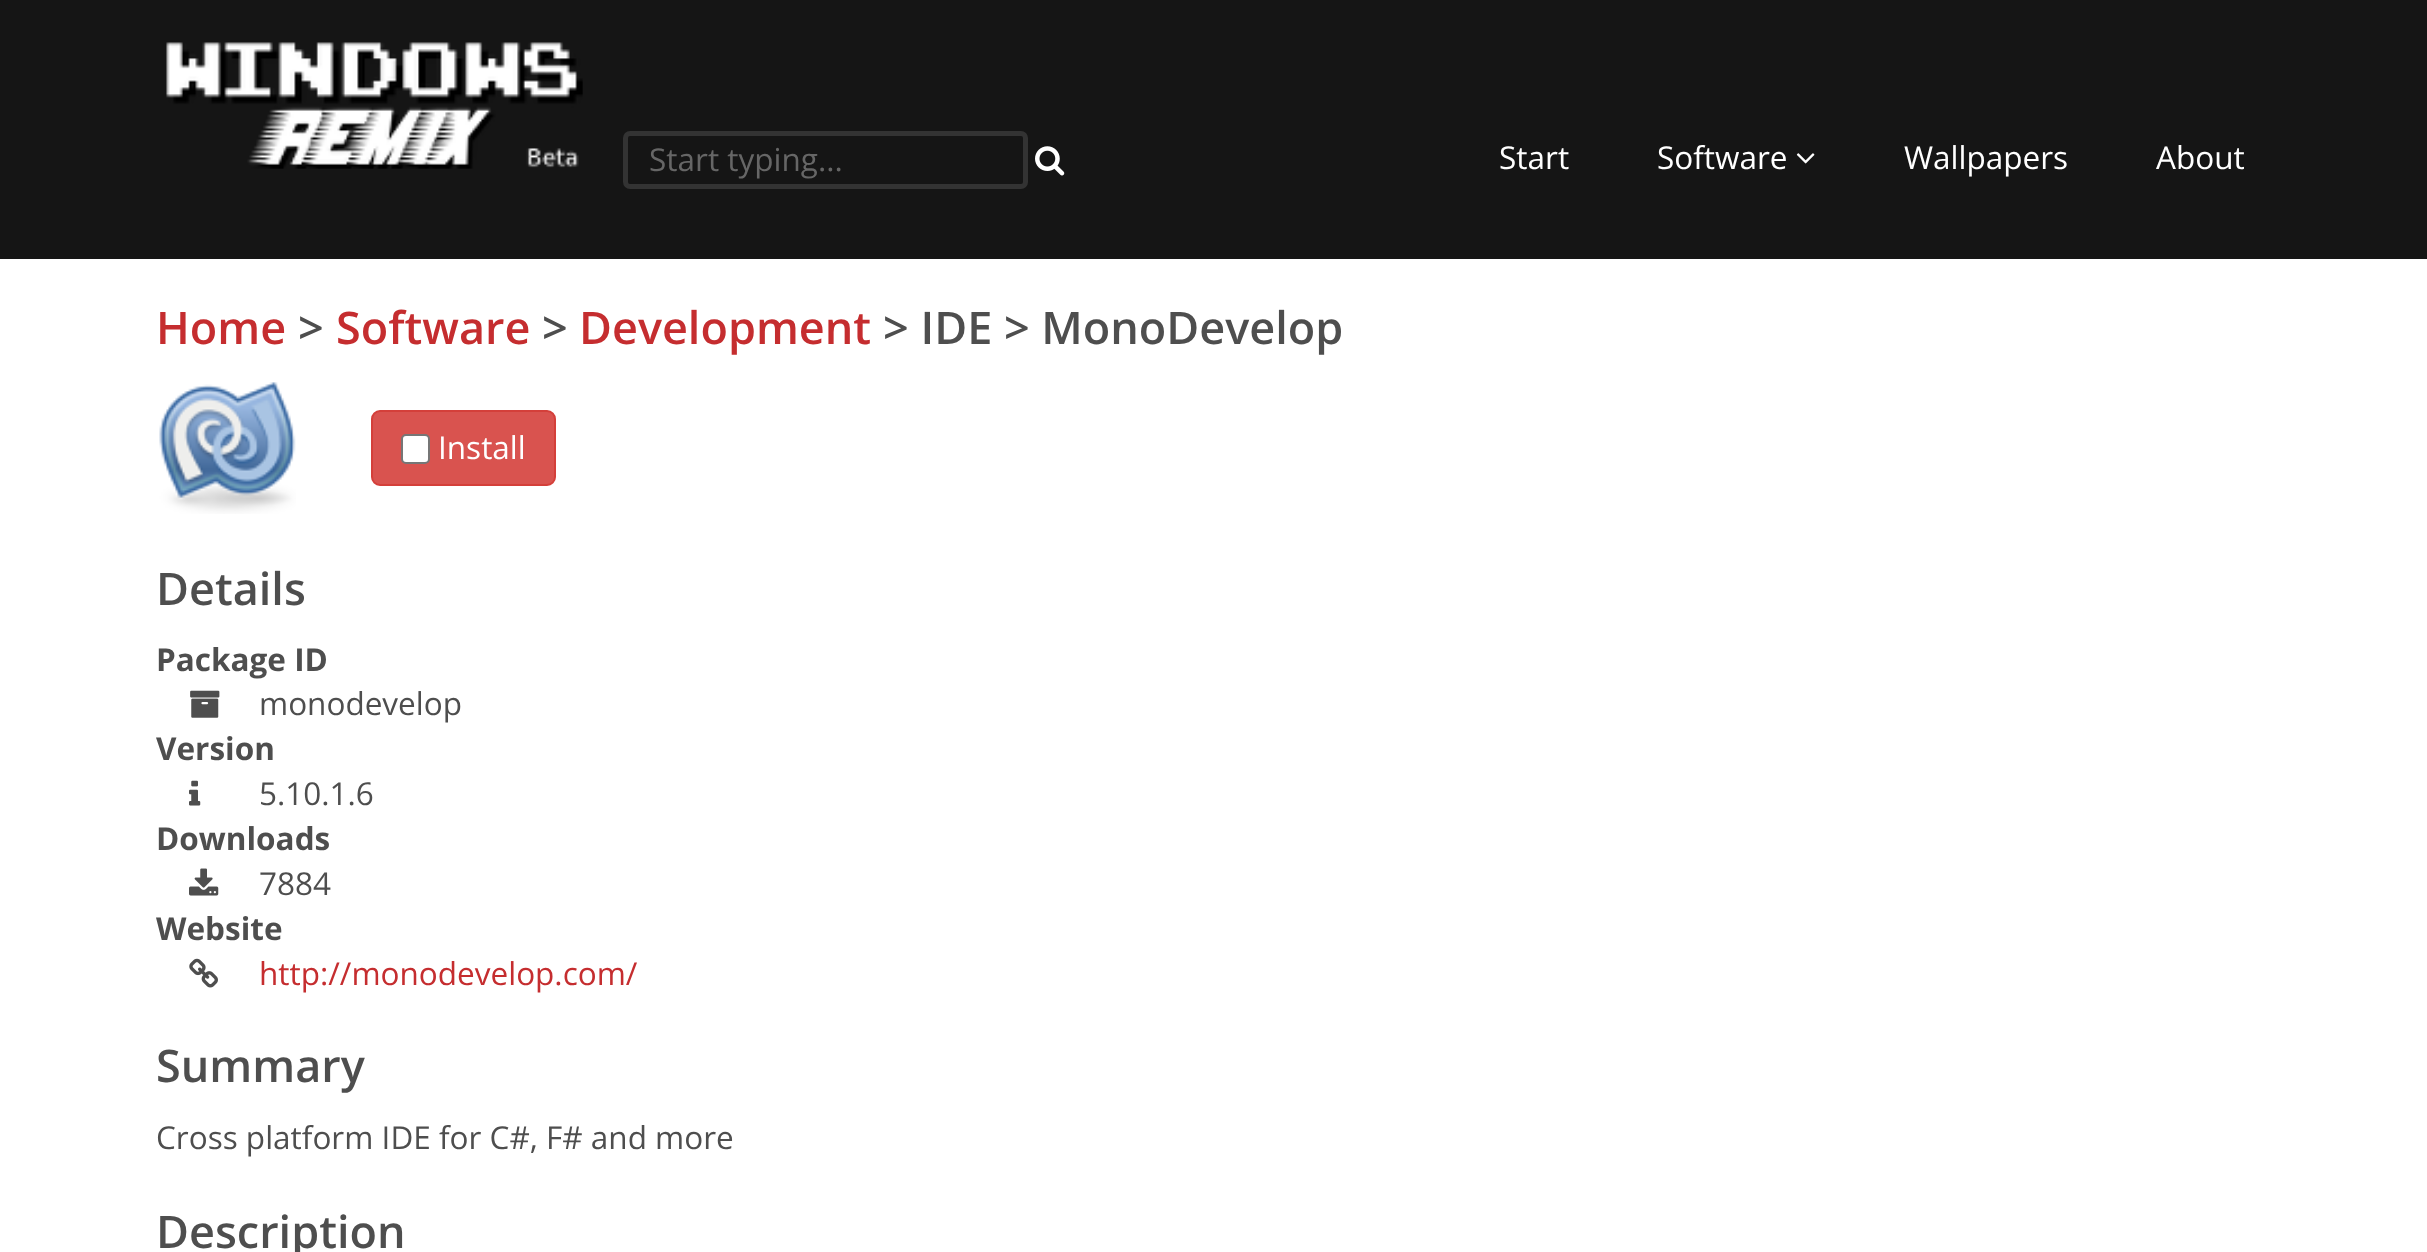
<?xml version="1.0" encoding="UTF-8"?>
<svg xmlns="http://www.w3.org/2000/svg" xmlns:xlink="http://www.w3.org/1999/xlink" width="2427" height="1252">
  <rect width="100%" height="100%" fill="#ffffff" />
  <rect width="2427" height="259" fill="#151515" />
  <image x="166" y="42" width="417" height="127" xlink:href="image1.png" />
  <rect x="625.5" y="133.5" width="400" height="53" rx="4.5" fill="none" stroke="#333333" stroke-width="5" />
  <image x="1035" y="146" width="30" height="30" xlink:href="image2.png" />
  <image x="1796" y="153" width="19" height="11" xlink:href="image3.png" />
  <image x="159" y="382" width="137" height="132" xlink:href="image4.png" />
  <rect x="372" y="411" width="183" height="74" rx="8" fill="#d9534f" stroke="#d43f3a" stroke-width="2" />
  <rect x="402" y="435" width="27" height="28" rx="4" fill="#ffffff" stroke="#767676" stroke-width="2" />
  <image x="190" y="690" width="30" height="28" xlink:href="image5.png" />
  <image x="189" y="780" width="12" height="26" xlink:href="image6.png" />
  <image x="189" y="868" width="30" height="28" xlink:href="image7.png" />
  <image x="189" y="958" width="29" height="30" xlink:href="image8.png" />
  <text x="649" y="171" style="font-family: Open Sans; font-size: 31.5px; fill: #666666">Start typing...</text>
  <text x="1499" y="169" style="font-family: Open Sans; font-size: 31.5px; fill: #ffffff">Start</text>
  <text x="1657" y="169" style="font-family: Open Sans; font-size: 31.5px; fill: #ffffff">Software</text>
  <text x="1904" y="169" style="font-family: Open Sans; font-size: 31.5px; fill: #ffffff">Wallpapers</text>
  <text x="2156" y="169" style="font-family: Open Sans; font-size: 31.5px; fill: #ffffff">About</text>
  <text x="156" y="344" style="font-family: Open Sans; font-size: 45px; font-weight: 600; fill: #c52d2f">Home</text>
  <text x="298" y="344" style="font-family: Open Sans; font-size: 45px; font-weight: 600; fill: #4e4e4e">&gt;</text>
  <text x="336" y="344" style="font-family: Open Sans; font-size: 45px; font-weight: 600; fill: #c52d2f">Software</text>
  <text x="542" y="344" style="font-family: Open Sans; font-size: 45px; font-weight: 600; fill: #4e4e4e">&gt;</text>
  <text x="579" y="344" style="font-family: Open Sans; font-size: 45px; font-weight: 600; fill: #c52d2f">Development</text>
  <text x="883" y="344" style="font-family: Open Sans; font-size: 45px; font-weight: 600; fill: #4e4e4e">&gt; IDE &gt; MonoDevelop</text>
  <text x="438" y="459" style="font-family: Open Sans; font-size: 31.5px; fill: #ffffff">Install</text>
  <text x="156" y="605" style="font-family: Open Sans; font-size: 45px; font-weight: 600; fill: #4e4e4e">Details</text>
  <text x="156" y="671" style="font-family: Open Sans; font-size: 31.5px; font-weight: bold; fill: #4e4e4e">Package ID</text>
  <text x="259" y="715" style="font-family: Open Sans; font-size: 31.5px; fill: #4e4e4e">monodevelop</text>
  <text x="156" y="760" style="font-family: Open Sans; font-size: 31.5px; font-weight: bold; fill: #4e4e4e">Version</text>
  <text x="259" y="805" style="font-family: Open Sans; font-size: 31.5px; fill: #4e4e4e">5.10.1.6</text>
  <text x="156" y="850" style="font-family: Open Sans; font-size: 31.5px; font-weight: bold; fill: #4e4e4e">Downloads</text>
  <text x="259" y="895" style="font-family: Open Sans; font-size: 31.5px; fill: #4e4e4e">7884</text>
  <text x="156" y="940" style="font-family: Open Sans; font-size: 31.5px; font-weight: bold; fill: #4e4e4e">Website</text>
  <text x="259" y="985" style="font-family: Open Sans; font-size: 31.5px; fill: #c52d2f">http://monodevelop.com/</text>
  <text x="156" y="1082" style="font-family: Open Sans; font-size: 45px; font-weight: 600; fill: #4e4e4e">Summary</text>
  <text x="156" y="1149" style="font-family: Open Sans; font-size: 31.5px; fill: #4e4e4e">Cross platform IDE for C#, F# and more</text>
  <text x="156" y="1248" style="font-family: Open Sans; font-size: 45px; font-weight: 600; fill: #4e4e4e">Description</text>
</svg>
